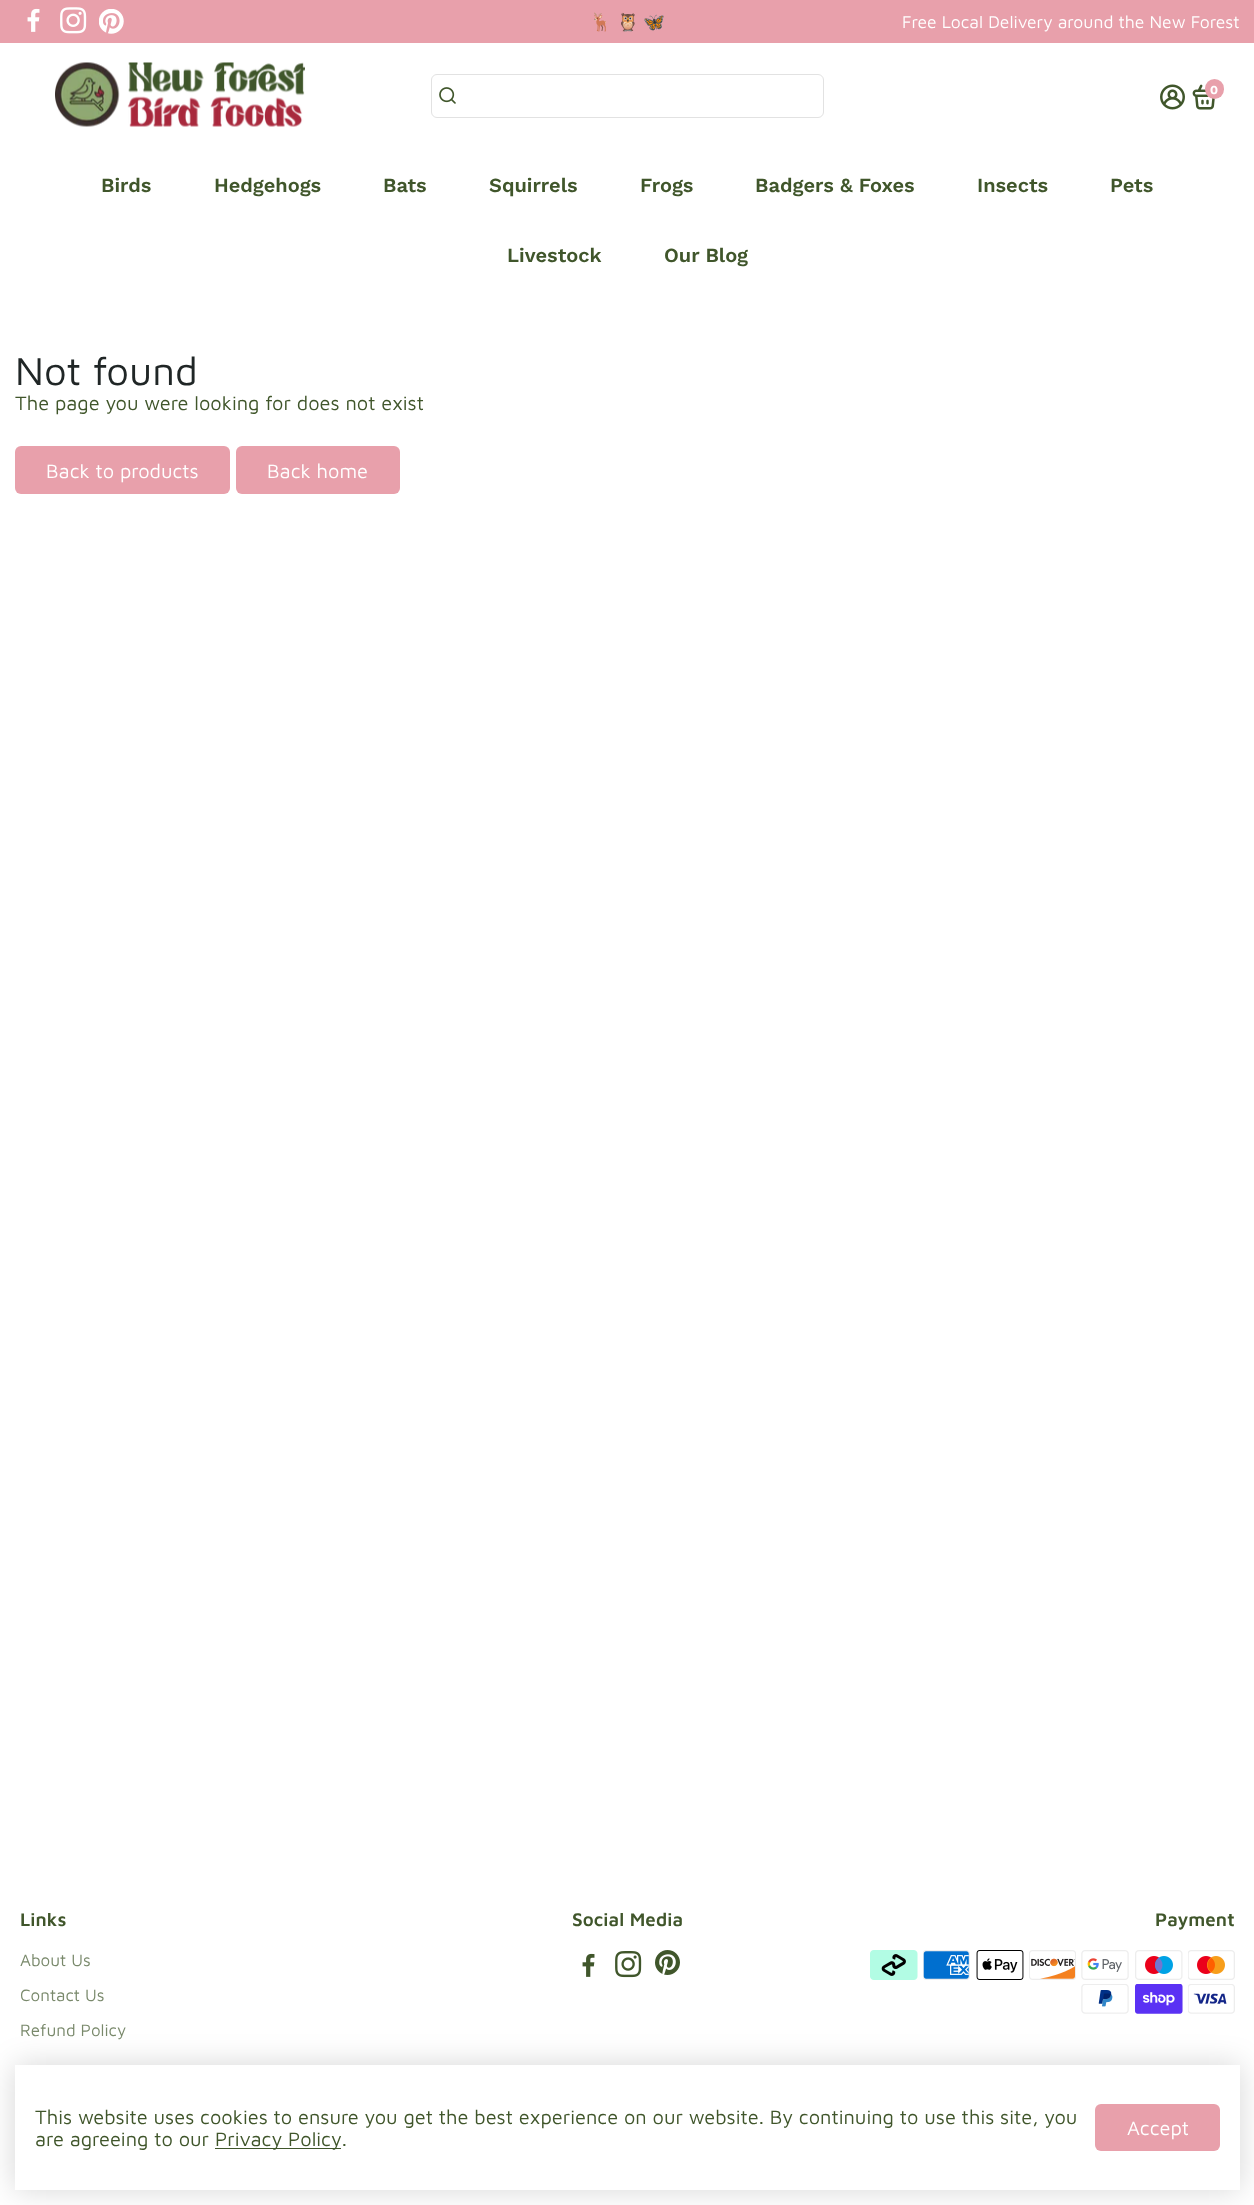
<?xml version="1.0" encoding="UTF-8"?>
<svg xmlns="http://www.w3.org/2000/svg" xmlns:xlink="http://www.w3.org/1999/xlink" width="1254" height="2205">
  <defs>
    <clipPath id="clip1"><rect x="590" y="3" width="75" height="37" /></clipPath>
  </defs>
  <rect width="100%" height="100%" fill="#ffffff" />
  <rect width="1254" height="43" fill="#e8a0ab" />
  <image x="27" y="8" width="13" height="24" xlink:href="image1.png" />
  <image x="60" y="7" width="27" height="27" xlink:href="image2.png" />
  <image x="99" y="9" width="25" height="25" xlink:href="image3.png" />
  <image x="55" y="62" width="250" height="65" xlink:href="image4.png" />
  <rect x="431.5" y="74.5" width="392" height="43" rx="5.5" fill="none" stroke="#e2e2e2" />
  <image x="439" y="87" width="17" height="17" xlink:href="image5.png" />
  <image x="1160" y="84" width="25" height="26" xlink:href="image6.png" />
  <image x="1192" y="84" width="23" height="26" xlink:href="image7.png" />
  <rect x="1205" y="79" width="19" height="20" rx="9.5" fill="#e8a0ab" />
  <rect x="15" y="446" width="215" height="48" rx="6" fill="#e8a0ab" />
  <rect x="236" y="446" width="164" height="48" rx="6" fill="#e8a0ab" />
  <image x="582" y="1953" width="13" height="24" xlink:href="image8.png" />
  <image x="615" y="1951" width="27" height="27" xlink:href="image9.png" />
  <image x="655" y="1950" width="25" height="25" xlink:href="image10.png" />
  <image x="870" y="1950" width="48" height="30" xlink:href="image11.png" />
  <image x="923" y="1950" width="47" height="30" xlink:href="image12.png" />
  <image x="976" y="1950" width="48" height="30" xlink:href="image13.png" />
  <image x="1029" y="1950" width="47" height="30" xlink:href="image14.png" />
  <image x="1081" y="1950" width="48" height="30" xlink:href="image15.png" />
  <image x="1135" y="1950" width="48" height="30" xlink:href="image16.png" />
  <image x="1188" y="1950" width="47" height="30" xlink:href="image17.png" />
  <image x="1081" y="1984" width="48" height="30" xlink:href="image18.png" />
  <image x="1135" y="1984" width="48" height="30" xlink:href="image19.png" />
  <image x="1188" y="1984" width="47" height="30" xlink:href="image20.png" />
  <rect x="15" y="2065" width="1225" height="125" fill="#000000" fill-opacity="0.16" filter="blur(15px)" />
  <rect x="15" y="2065" width="1225" height="125" fill="#ffffff" />
  <rect x="215" y="2148" width="126" height="1" fill="#40562b" />
  <rect x="1095" y="2104" width="125" height="47" rx="6" fill="#e8a0ab" />
  <g clip-path="url(#clip1)">
    <text x="590" y="28" style="font-family: Noto Color Emoji; font-size: 17.5px; fill: #ffffff">🦌</text>
  </g>
  <text x="617" y="28" style="font-family: Noto Color Emoji; font-size: 17.5px; fill: #ffffff">🦉</text>
  <text x="643" y="28" style="font-family: Noto Color Emoji; font-size: 17.5px; fill: #ffffff">🦋</text>
  <text x="902" y="28" style="font-family: Maven Pro; font-size: 17.5px; fill: #ffffff">Free Local Delivery around the New Forest</text>
  <text x="1210" y="94" style="font-family: Maven Pro; font-size: 12px; font-weight: bold; fill: #ffffff">0</text>
  <text x="101" y="192" style="font-family: Work Sans; font-size: 20px; font-weight: 600; fill: #40562b">Birds</text>
  <text x="214" y="192" style="font-family: Work Sans; font-size: 20px; font-weight: 600; fill: #40562b">Hedgehogs</text>
  <text x="383" y="192" style="font-family: Work Sans; font-size: 20px; font-weight: 600; fill: #40562b">Bats</text>
  <text x="489" y="192" style="font-family: Work Sans; font-size: 20px; font-weight: 600; fill: #40562b">Squirrels</text>
  <text x="640" y="192" style="font-family: Work Sans; font-size: 20px; font-weight: 600; fill: #40562b">Frogs</text>
  <text x="755" y="192" style="font-family: Work Sans; font-size: 20px; font-weight: 600; fill: #40562b">Badgers &amp; Foxes</text>
  <text x="977" y="192" style="font-family: Work Sans; font-size: 20px; font-weight: 600; fill: #40562b">Insects</text>
  <text x="1110" y="192" style="font-family: Work Sans; font-size: 20px; font-weight: 600; fill: #40562b">Pets</text>
  <text x="507" y="262" style="font-family: Work Sans; font-size: 20px; font-weight: 600; fill: #40562b">Livestock</text>
  <text x="664" y="262" style="font-family: Work Sans; font-size: 20px; font-weight: 600; fill: #40562b">Our Blog</text>
  <text x="15" y="385" style="font-family: Maven Pro; font-size: 40px; fill: #202626">Not found</text>
  <text x="15" y="410" style="font-family: Maven Pro; font-size: 20px; fill: #40562b">The page you were looking for does not exist</text>
  <text x="46" y="478" style="font-family: Maven Pro; font-size: 20px; fill: #ffffff">Back to products</text>
  <text x="267" y="478" style="font-family: Maven Pro; font-size: 20px; fill: #ffffff">Back home</text>
  <text x="20" y="1926" style="font-family: Maven Pro; font-size: 18.75px; font-weight: 600; letter-spacing: 0.1px; fill: #40562b">Links</text>
  <text x="20" y="1966" style="font-family: Maven Pro; font-size: 17px; fill: #79896b">About Us</text>
  <text x="20" y="2001" style="font-family: Maven Pro; font-size: 17px; fill: #79896b">Contact Us</text>
  <text x="20" y="2036" style="font-family: Maven Pro; font-size: 17px; fill: #79896b">Refund Policy</text>
  <text x="572" y="1926" style="font-family: Maven Pro; font-size: 18.75px; font-weight: 600; letter-spacing: 0.1px; fill: #40562b">Social Media</text>
  <text x="1155" y="1926" style="font-family: Maven Pro; font-size: 18.75px; font-weight: 600; letter-spacing: 0.1px; fill: #40562b">Payment</text>
  <text x="35" y="2124" style="font-family: Maven Pro; font-size: 20px; fill: #40562b">This website uses cookies to ensure you get the best experience on our website. By continuing to use this site, you</text>
  <text x="35" y="2146" style="font-family: Maven Pro; font-size: 20px; fill: #40562b">are agreeing to our</text>
  <text x="215" y="2146" style="font-family: Maven Pro; font-size: 20px; fill: #40562b">Privacy Policy.</text>
  <text x="1127" y="2135" style="font-family: Maven Pro; font-size: 20px; fill: #ffffff">Accept</text>
</svg>
